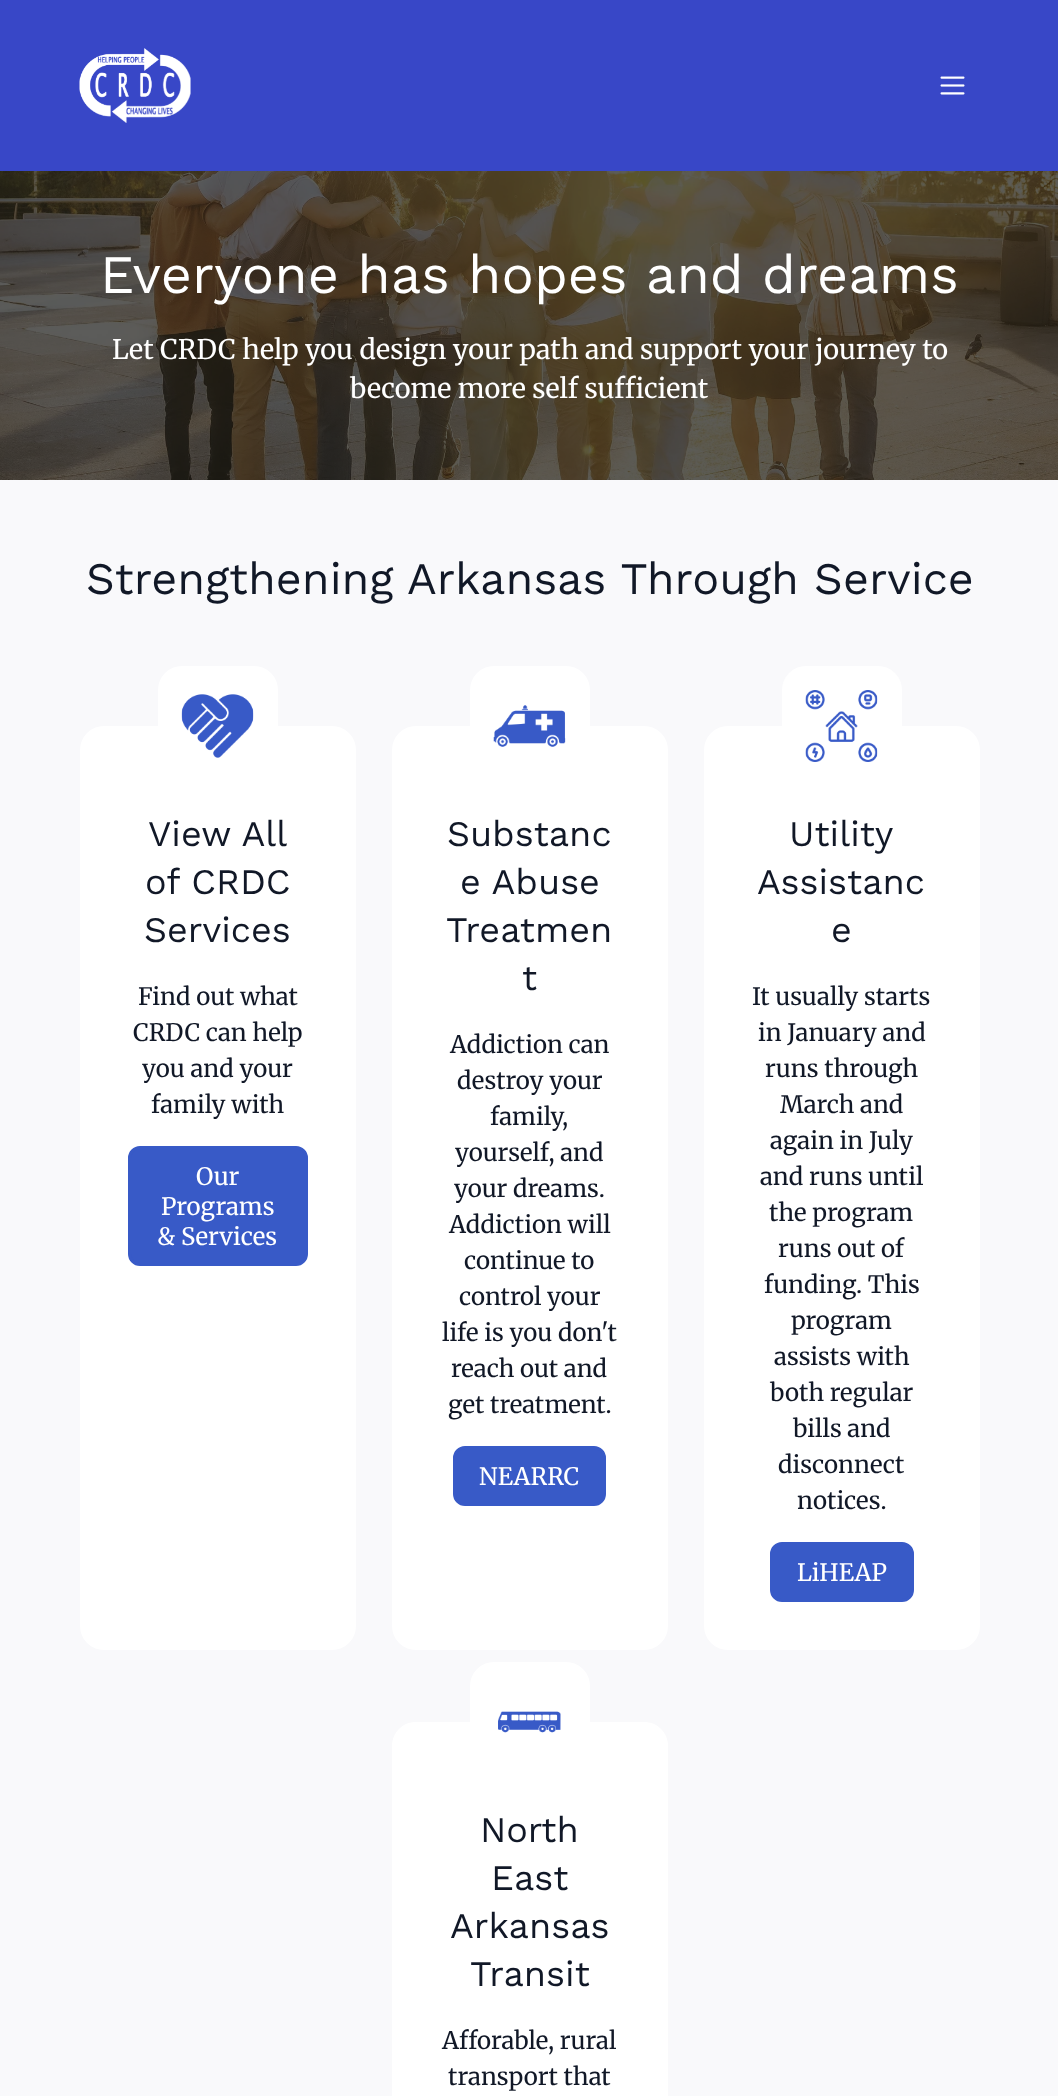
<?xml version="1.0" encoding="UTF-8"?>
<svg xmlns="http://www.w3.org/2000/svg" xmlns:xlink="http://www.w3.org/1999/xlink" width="1058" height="2096">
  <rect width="100%" height="100%" fill="#f9f9fb" />
  <rect width="1058" height="171" fill="#3847c7" />
  <image x="79" y="48" width="112" height="75" xlink:href="image1.png" />
  <image x="940" y="76" width="25" height="19" xlink:href="image2.png" />
  <image x="0" y="171" width="1058" height="309" xlink:href="image3.png" />
  <rect x="80" y="726" width="276" height="924" rx="24" fill="#ffffff" />
  <rect x="158" y="666" width="120" height="120" rx="24" fill="#ffffff" />
  <image x="181" y="694" width="73" height="64" xlink:href="image4.png" />
  <rect x="129.5" y="1147.5" width="177" height="117" rx="10.5" fill="#385ac7" stroke="#385ac7" stroke-width="3" />
  <rect x="392" y="726" width="276" height="924" rx="24" fill="#ffffff" />
  <rect x="470" y="666" width="120" height="120" rx="24" fill="#ffffff" />
  <image x="493" y="705" width="73" height="42" xlink:href="image5.png" />
  <rect x="454.5" y="1447.5" width="150" height="57" rx="10.5" fill="#385ac7" stroke="#385ac7" stroke-width="3" />
  <rect x="704" y="726" width="276" height="924" rx="24" fill="#ffffff" />
  <rect x="782" y="666" width="120" height="120" rx="24" fill="#ffffff" />
  <image x="805" y="690" width="73" height="72" xlink:href="image6.png" />
  <rect x="771.5" y="1543.5" width="141" height="57" rx="10.5" fill="#385ac7" stroke="#385ac7" stroke-width="3" />
  <path d="M 416 1722 h 228 c 13.5 0 24 10.5 24 24 v 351 h -276 v -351 c 0 -13.5 10.5 -24 24 -24 z" fill="#ffffff" />
  <rect x="470" y="1662" width="120" height="120" rx="24" fill="#ffffff" />
  <image x="498" y="1711" width="63" height="22" xlink:href="image7.png" />
  <text x="100" y="293" style="font-family: Work Sans; font-size: 54px; fill: #ffffff">Everyone has hopes and dreams</text>
  <text x="112" y="359" style="font-family: Merriweather; font-size: 27px; font-weight: 300; fill: #ffffff">Let CRDC help you design your path and support your journey to</text>
  <text x="350" y="398" style="font-family: Merriweather; font-size: 27px; font-weight: 300; fill: #ffffff">become more self sufficient</text>
  <text x="86" y="594" style="font-family: Work Sans; font-size: 45px; fill: #111827">Strengthening Arkansas Through Service</text>
  <text x="148" y="846" style="font-family: Work Sans; font-size: 36px; fill: #111827">View All</text>
  <text x="145" y="894" style="font-family: Work Sans; font-size: 36px; fill: #111827">of CRDC</text>
  <text x="144" y="942" style="font-family: Work Sans; font-size: 36px; fill: #111827">Services</text>
  <text x="138" y="1005" style="font-family: Merriweather; font-size: 24px; font-weight: 300; fill: #111827">Find out what</text>
  <text x="133" y="1041" style="font-family: Merriweather; font-size: 24px; font-weight: 300; fill: #111827">CRDC can help</text>
  <text x="142" y="1077" style="font-family: Merriweather; font-size: 24px; font-weight: 300; fill: #111827">you and your</text>
  <text x="151" y="1113" style="font-family: Merriweather; font-size: 24px; font-weight: 300; fill: #111827">family with</text>
  <text x="196" y="1185" style="font-family: Merriweather; font-size: 24px; font-weight: 300; fill: #ffffff">Our</text>
  <text x="161" y="1215" style="font-family: Merriweather; font-size: 24px; font-weight: 300; fill: #ffffff">Programs</text>
  <text x="157" y="1245" style="font-family: Merriweather; font-size: 24px; font-weight: 300; fill: #ffffff">&amp; Services</text>
  <text x="447" y="846" style="font-family: Work Sans; font-size: 36px; fill: #111827">Substanc</text>
  <text x="460" y="894" style="font-family: Work Sans; font-size: 36px; fill: #111827">e Abuse</text>
  <text x="446" y="942" style="font-family: Work Sans; font-size: 36px; fill: #111827">Treatmen</text>
  <text x="522" y="990" style="font-family: Work Sans; font-size: 36px; fill: #111827">t</text>
  <text x="450" y="1053" style="font-family: Merriweather; font-size: 24px; font-weight: 300; fill: #111827">Addiction can</text>
  <text x="457" y="1089" style="font-family: Merriweather; font-size: 24px; font-weight: 300; fill: #111827">destroy your</text>
  <text x="490" y="1125" style="font-family: Merriweather; font-size: 24px; font-weight: 300; fill: #111827">family,</text>
  <text x="455" y="1161" style="font-family: Merriweather; font-size: 24px; font-weight: 300; fill: #111827">yourself, and</text>
  <text x="454" y="1197" style="font-family: Merriweather; font-size: 24px; font-weight: 300; fill: #111827">your dreams.</text>
  <text x="449" y="1233" style="font-family: Merriweather; font-size: 24px; font-weight: 300; fill: #111827">Addiction will</text>
  <text x="464" y="1269" style="font-family: Merriweather; font-size: 24px; font-weight: 300; fill: #111827">continue to</text>
  <text x="459" y="1305" style="font-family: Merriweather; font-size: 24px; font-weight: 300; fill: #111827">control your</text>
  <text x="442" y="1341" style="font-family: Merriweather; font-size: 24px; font-weight: 300; fill: #111827">life is you don't</text>
  <text x="451" y="1377" style="font-family: Merriweather; font-size: 24px; font-weight: 300; fill: #111827">reach out and</text>
  <text x="448" y="1413" style="font-family: Merriweather; font-size: 24px; font-weight: 300; fill: #111827">get treatment.</text>
  <text x="479" y="1485" style="font-family: Merriweather; font-size: 24px; font-weight: 300; fill: #ffffff">NEARRC</text>
  <text x="789" y="846" style="font-family: Work Sans; font-size: 36px; fill: #111827">Utility</text>
  <text x="757" y="894" style="font-family: Work Sans; font-size: 36px; fill: #111827">Assistanc</text>
  <text x="831" y="942" style="font-family: Work Sans; font-size: 36px; fill: #111827">e</text>
  <text x="752" y="1005" style="font-family: Merriweather; font-size: 24px; font-weight: 300; fill: #111827">It usually starts</text>
  <text x="758" y="1041" style="font-family: Merriweather; font-size: 24px; font-weight: 300; fill: #111827">in January and</text>
  <text x="765" y="1077" style="font-family: Merriweather; font-size: 24px; font-weight: 300; fill: #111827">runs through</text>
  <text x="780" y="1113" style="font-family: Merriweather; font-size: 24px; font-weight: 300; fill: #111827">March and</text>
  <text x="770" y="1149" style="font-family: Merriweather; font-size: 24px; font-weight: 300; fill: #111827">again in July</text>
  <text x="760" y="1185" style="font-family: Merriweather; font-size: 24px; font-weight: 300; fill: #111827">and runs until</text>
  <text x="769" y="1221" style="font-family: Merriweather; font-size: 24px; font-weight: 300; fill: #111827">the program</text>
  <text x="778" y="1257" style="font-family: Merriweather; font-size: 24px; font-weight: 300; fill: #111827">runs out of</text>
  <text x="764" y="1293" style="font-family: Merriweather; font-size: 24px; font-weight: 300; fill: #111827">funding. This</text>
  <text x="791" y="1329" style="font-family: Merriweather; font-size: 24px; font-weight: 300; fill: #111827">program</text>
  <text x="774" y="1365" style="font-family: Merriweather; font-size: 24px; font-weight: 300; fill: #111827">assists with</text>
  <text x="770" y="1401" style="font-family: Merriweather; font-size: 24px; font-weight: 300; fill: #111827">both regular</text>
  <text x="793" y="1437" style="font-family: Merriweather; font-size: 24px; font-weight: 300; fill: #111827">bills and</text>
  <text x="778" y="1473" style="font-family: Merriweather; font-size: 24px; font-weight: 300; fill: #111827">disconnect</text>
  <text x="797" y="1509" style="font-family: Merriweather; font-size: 24px; font-weight: 300; fill: #111827">notices.</text>
  <text x="797" y="1581" style="font-family: Merriweather; font-size: 24px; font-weight: 300; fill: #ffffff">LiHEAP</text>
  <text x="480" y="1842" style="font-family: Work Sans; font-size: 36px; fill: #111827">North</text>
  <text x="491" y="1890" style="font-family: Work Sans; font-size: 36px; fill: #111827">East</text>
  <text x="450" y="1938" style="font-family: Work Sans; font-size: 36px; fill: #111827">Arkansas</text>
  <text x="470" y="1986" style="font-family: Work Sans; font-size: 36px; fill: #111827">Transit</text>
  <text x="442" y="2049" style="font-family: Merriweather; font-size: 24px; font-weight: 300; fill: #111827">Afforable, rural</text>
  <text x="448" y="2085" style="font-family: Merriweather; font-size: 24px; font-weight: 300; fill: #111827">transport that</text>
</svg>
